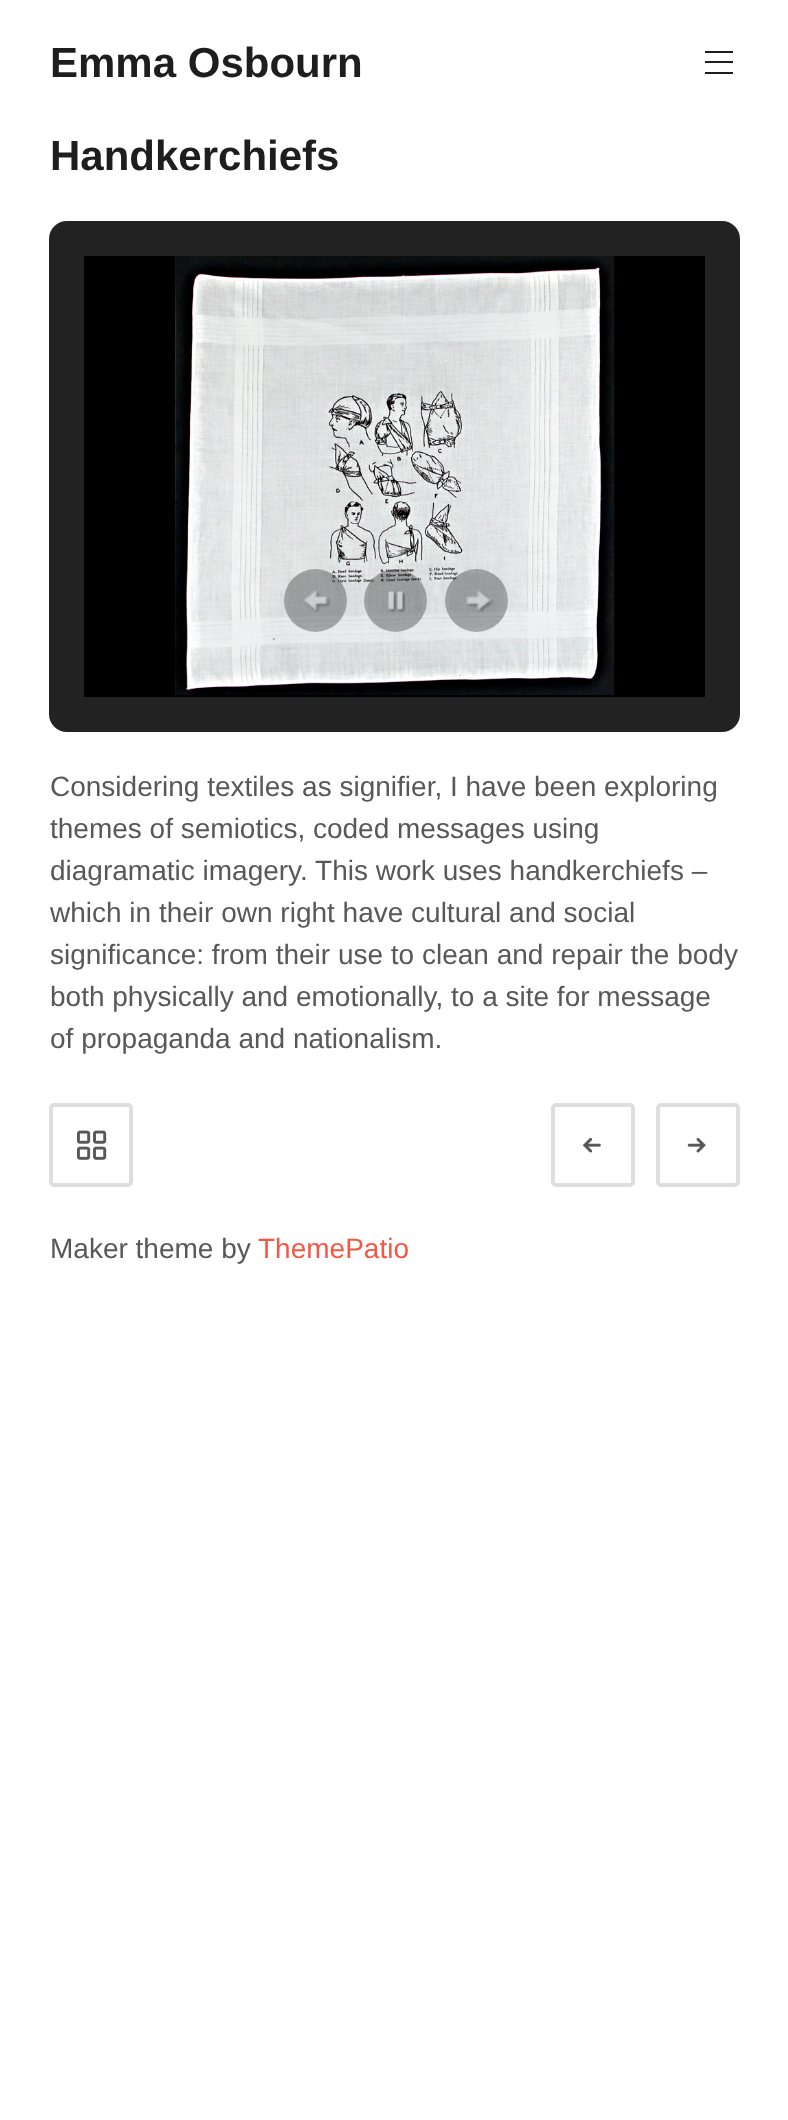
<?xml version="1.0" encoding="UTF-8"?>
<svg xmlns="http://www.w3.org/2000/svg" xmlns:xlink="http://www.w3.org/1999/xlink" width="788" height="2120">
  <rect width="100%" height="100%" fill="#ffffff" />
  <rect x="705" y="61" width="28" height="2" fill="#1e1e1e" />
  <rect x="705" y="51" width="28" height="2" fill="#1e1e1e" />
  <rect x="705" y="72" width="28" height="2" fill="#1e1e1e" />
  <rect x="66.5" y="238.5" width="656" height="476" rx="0.5" fill="none" stroke="#222222" stroke-width="35" />
  <rect x="84" y="256" width="621" height="441" fill="#000000" />
  <image x="175" y="256" width="440" height="439" xlink:href="image1.png" />
  <circle cx="315.5" cy="600.5" r="31.5" fill="#000000" fill-opacity="0.3" />
  <image x="303" y="590" width="28" height="23" xlink:href="image2.png" />
  <rect x="286" y="571" width="59" height="59" fill="none" stroke="#ffffff" stroke-opacity="0.05" stroke-width="4" />
  <circle cx="395.5" cy="600.5" r="31.5" fill="#000000" fill-opacity="0.3" />
  <image x="388" y="591" width="18" height="22" xlink:href="image3.png" />
  <rect x="366" y="571" width="59" height="59" fill="none" stroke="#ffffff" stroke-opacity="0.05" stroke-width="4" />
  <circle cx="476.5" cy="600.5" r="31.5" fill="#000000" fill-opacity="0.3" />
  <image x="466" y="590" width="28" height="23" xlink:href="image4.png" />
  <rect x="447" y="571" width="59" height="59" fill="none" stroke="#ffffff" stroke-opacity="0.05" stroke-width="4" />
  <rect x="51" y="1105" width="80" height="80" rx="3" fill="none" stroke="#dedede" stroke-width="4" />
  <image x="77" y="1130" width="30" height="30" xlink:href="image5.png" />
  <rect x="553" y="1105" width="80" height="80" rx="3" fill="none" stroke="#dedede" stroke-width="4" />
  <image x="582" y="1137" width="19" height="16" xlink:href="image6.png" />
  <rect x="658" y="1105" width="80" height="80" rx="3" fill="none" stroke="#dedede" stroke-width="4" />
  <image x="687" y="1138" width="19" height="15" xlink:href="image7.png" />
  <text x="50" y="77" style="font-family: Liberation Sans; font-size: 42px; font-weight: bold; fill: #1e1e1e">Emma Osbourn</text>
  <text x="50" y="170" style="font-family: Liberation Sans; font-size: 42px; font-weight: bold; fill: #1e1e1e">Handkerchiefs</text>
  <text x="50" y="796" style="font-family: Liberation Sans; font-size: 28px; fill: #585858">Considering textiles as signifier, I have been exploring</text>
  <text x="50" y="838" style="font-family: Liberation Sans; font-size: 28px; fill: #585858">themes of semiotics, coded messages using</text>
  <text x="50" y="880" style="font-family: Liberation Sans; font-size: 28px; fill: #585858">diagramatic imagery. This work uses handkerchiefs –</text>
  <text x="50" y="922" style="font-family: Liberation Sans; font-size: 28px; fill: #585858">which in their own right have cultural and social</text>
  <text x="50" y="964" style="font-family: Liberation Sans; font-size: 28px; fill: #585858">significance: from their use to clean and repair the body</text>
  <text x="50" y="1006" style="font-family: Liberation Sans; font-size: 28px; fill: #585858">both physically and emotionally, to a site for message</text>
  <text x="50" y="1048" style="font-family: Liberation Sans; font-size: 28px; fill: #585858">of propaganda and nationalism.</text>
  <text x="50" y="1258" style="font-family: Liberation Sans; font-size: 28px; fill: #585858">Maker theme by</text>
  <text x="258" y="1258" style="font-family: Liberation Sans; font-size: 28px; fill: #f45844">ThemePatio</text>
</svg>
